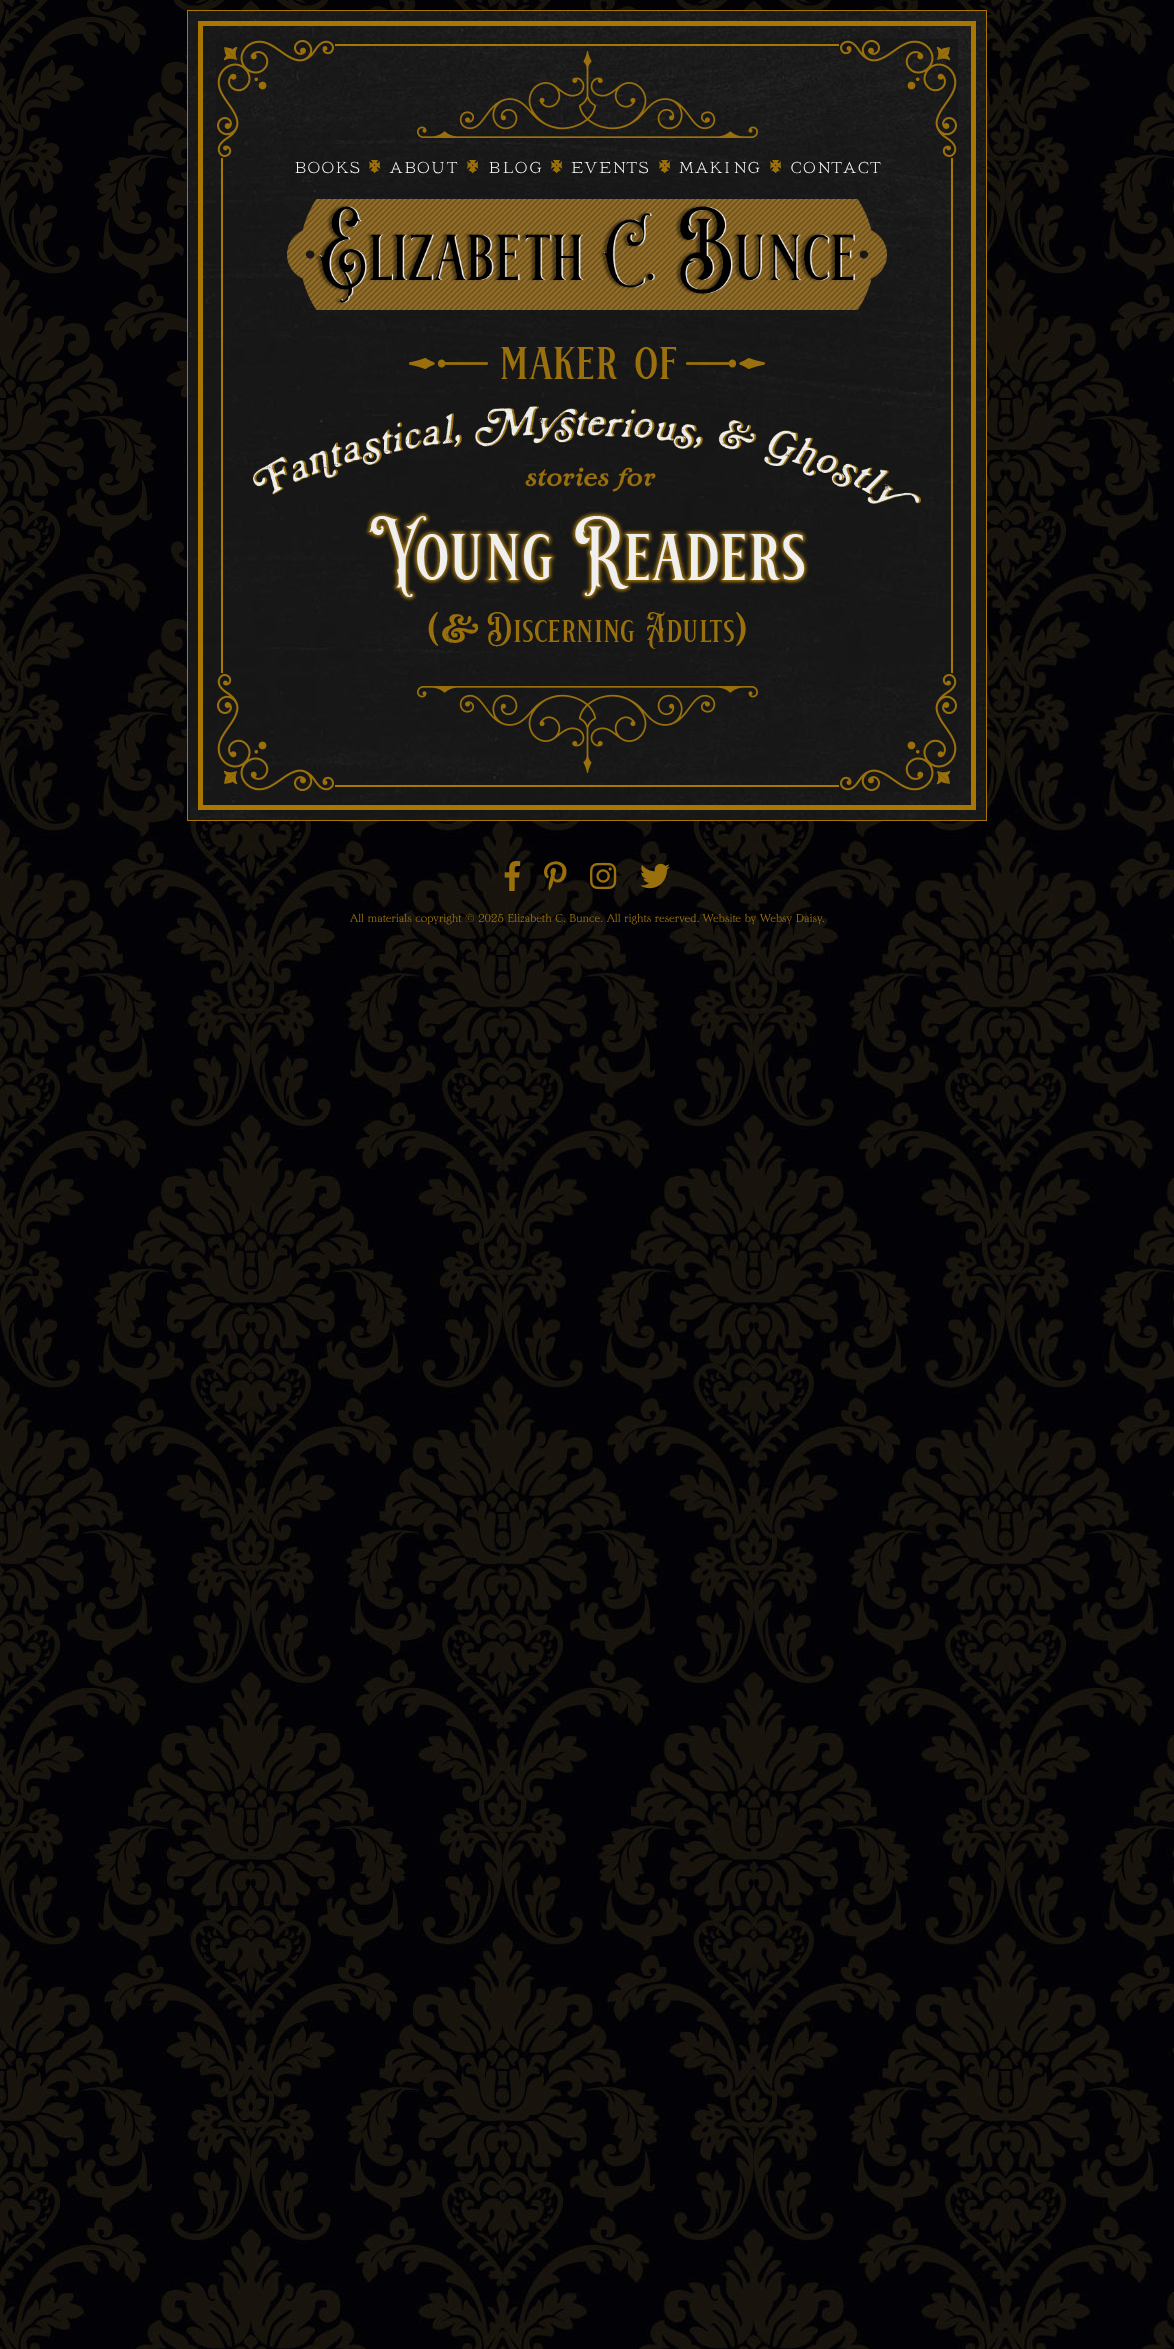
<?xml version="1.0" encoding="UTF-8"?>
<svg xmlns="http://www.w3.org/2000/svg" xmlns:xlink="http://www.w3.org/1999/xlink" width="1174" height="2349">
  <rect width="100%" height="100%" fill="#ffffff" />
  <image x="0" y="0" width="1174" height="2349" xlink:href="image1.png" />
  <image x="188" y="11" width="798" height="809" xlink:href="image2.png" />
  <rect x="187.5" y="10.5" width="799" height="810" fill="none" stroke="#a97700" />
  <rect x="200.5" y="23.5" width="773" height="784" fill="none" stroke="#a97700" stroke-width="5" />
  <rect x="222" y="45" width="730" height="741" fill="none" stroke="#a97700" stroke-width="2" />
  <image x="216" y="39" width="119" height="119" xlink:href="image3.png" />
  <image x="839" y="39" width="119" height="119" xlink:href="image4.png" />
  <image x="417" y="51" width="341" height="87" xlink:href="image5.png" />
  <image x="369" y="160" width="11" height="13" xlink:href="image6.png" />
  <image x="467" y="160" width="11" height="13" xlink:href="image7.png" />
  <image x="551" y="160" width="11" height="13" xlink:href="image8.png" />
  <image x="659" y="160" width="11" height="13" xlink:href="image9.png" />
  <image x="770" y="160" width="11" height="13" xlink:href="image10.png" />
  <image x="287" y="199" width="600" height="111" xlink:href="image11.png" />
  <image x="409" y="347" width="356" height="32" xlink:href="image12.png" />
  <image x="253" y="406" width="668" height="98" xlink:href="image13.png" />
  <image x="365" y="511" width="444" height="91" xlink:href="image14.png" />
  <image x="428" y="612" width="318" height="37" xlink:href="image15.png" />
  <image x="217" y="673" width="118" height="119" xlink:href="image16.png" />
  <image x="417" y="686" width="341" height="87" xlink:href="image17.png" />
  <image x="839" y="673" width="119" height="119" xlink:href="image18.png" />
  <image x="504" y="861" width="17" height="30" xlink:href="image19.png" />
  <image x="544" y="861" width="23" height="30" xlink:href="image20.png" />
  <image x="590" y="862" width="27" height="28" xlink:href="image21.png" />
  <image x="640" y="863" width="30" height="26" xlink:href="image22.png" />
  <text x="293" y="173" style="font-family: 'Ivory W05'; font-size: 17px; fill: #ffffff">Books</text>
  <text x="389" y="173" style="font-family: 'Ivory W05'; font-size: 17px; fill: #ffffff">About</text>
  <text x="487" y="173" style="font-family: 'Ivory W05'; font-size: 17px; fill: #ffffff">Blog</text>
  <text x="570" y="173" style="font-family: 'Ivory W05'; font-size: 17px; fill: #ffffff">Events</text>
  <text x="678" y="173" style="font-family: 'Ivory W05'; font-size: 17px; fill: #ffffff">Making</text>
  <text x="789" y="173" style="font-family: 'Ivory W05'; font-size: 17px; fill: #ffffff">Contact</text>
  <text x="350" y="922" style="font-family: 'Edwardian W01'; font-size: 12px; font-weight: 300; fill: #99700c">All materials copyright © 2025 Elizabeth C. Bunce. All rights reserved. Website by</text>
  <text x="760" y="922" style="font-family: 'Edwardian W01'; font-size: 12px; font-weight: 300; fill: #99700c">Websy Daisy</text>
  <text x="822" y="922" style="font-family: 'Edwardian W01'; font-size: 12px; font-weight: 300; fill: #99700c">.</text>
</svg>
